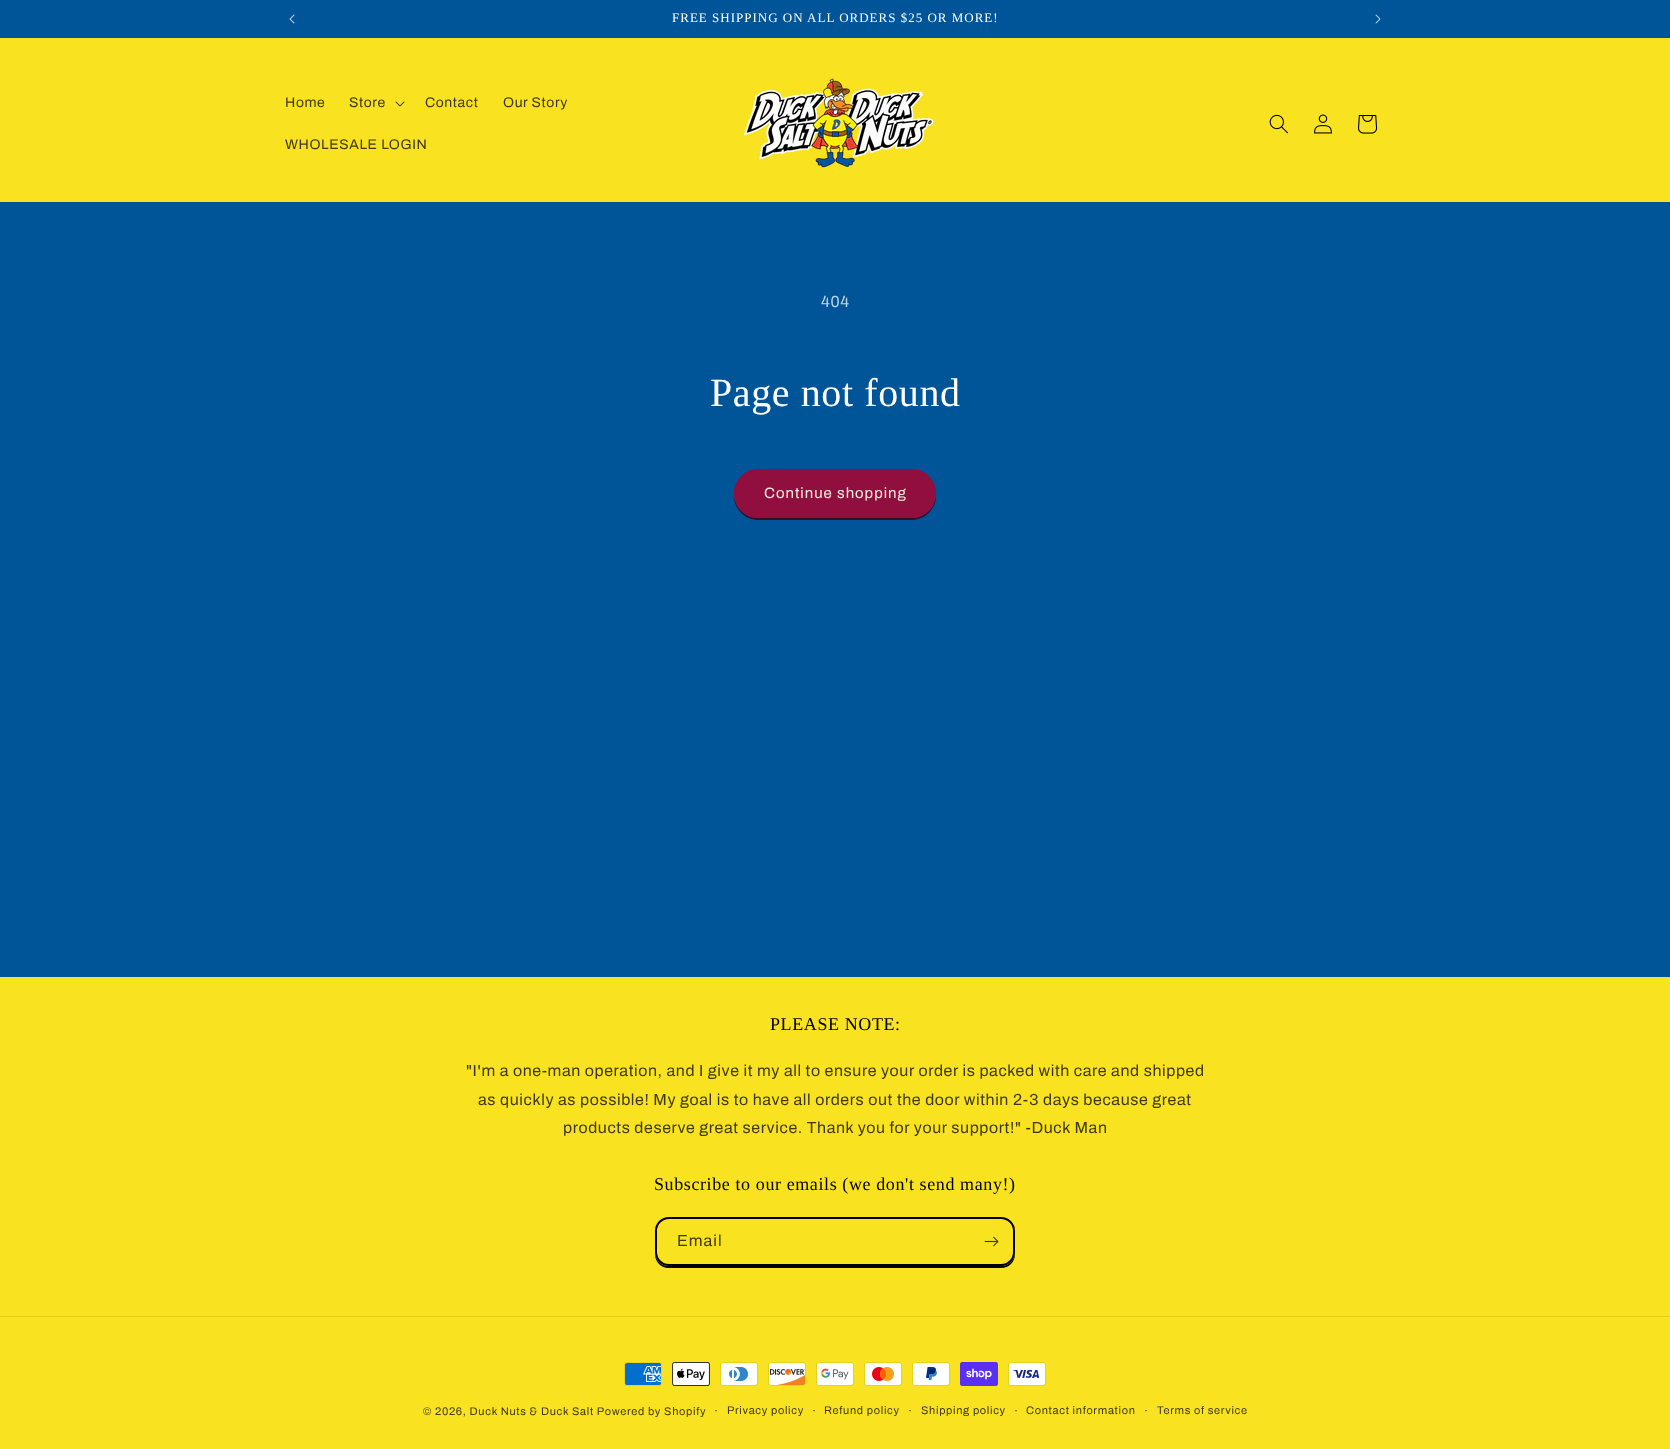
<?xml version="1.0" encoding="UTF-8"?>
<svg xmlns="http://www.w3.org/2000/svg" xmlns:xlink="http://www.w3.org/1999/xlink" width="1670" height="1449">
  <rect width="100%" height="100%" fill="#005498" />
  <image x="289" y="14" width="6" height="10" xlink:href="image1.png" />
  <image x="1375" y="14" width="6" height="10" xlink:href="image2.png" />
  <rect y="38" width="1670" height="164" fill="#f9e220" />
  <image x="395" y="101" width="10" height="6" xlink:href="image3.png" />
  <image x="743" y="78" width="191" height="90" xlink:href="image4.png" />
  <image x="1269" y="114" width="19" height="20" xlink:href="image5.png" />
  <image x="1314" y="114" width="18" height="20" xlink:href="image6.png" />
  <image x="1358" y="115" width="20" height="19" xlink:href="image7.png" />
  <path d="M 734 494 v 2 c 0 13 11 24 24 24 h 154 c 13 0 24 -11 24 -24 v -2 c -1 14 -11 24 -24 24 h -154 c -13 0 -23 -10 -24 -24 z" fill="#371028" />
  <rect x="734" y="469" width="202" height="49" rx="24.5" fill="#910f3f" />
  <rect x="735" y="470" width="200" height="47" rx="23.5" fill="none" stroke="#910f3f" stroke-width="2" />
  <rect y="977" width="1670" height="472" fill="#f9e220" />
  <path d="M 655 1252 v 2 c 0 8 6 14 14 14 h 332 c 8 0 14 -6 14 -14 v -2 c 0 8 -6 14 -14 14 h -332 c -8 0 -14 -6 -14 -14 z" fill="#000000" />
  <rect x="656" y="1218" width="358" height="47" rx="13" fill="none" stroke="#000000" stroke-width="2" />
  <image x="984" y="1236" width="15" height="11" xlink:href="image8.png" />
  <rect y="1316" width="1670" height="1" fill="#e5d01d" />
  <image x="624" y="1362" width="38" height="24" xlink:href="image9.png" />
  <image x="672" y="1362" width="38" height="24" xlink:href="image10.png" />
  <image x="720" y="1362" width="38" height="24" xlink:href="image11.png" />
  <image x="768" y="1362" width="38" height="24" xlink:href="image12.png" />
  <image x="816" y="1362" width="38" height="24" xlink:href="image13.png" />
  <image x="864" y="1362" width="38" height="24" xlink:href="image14.png" />
  <image x="912" y="1362" width="38" height="24" xlink:href="image15.png" />
  <image x="960" y="1362" width="38" height="24" xlink:href="image16.png" />
  <image x="1008" y="1362" width="38" height="24" xlink:href="image17.png" />
  <text x="672" y="22" style="font-family: Liberation Serif; font-size: 13px; letter-spacing: 1px; fill: #ffffff">FREE SHIPPING ON ALL ORDERS $25 OR MORE!</text>
  <text x="285" y="107" style="font-family: Archivo; font-size: 14px; letter-spacing: 0.6px; fill: #3e3908">Home</text>
  <text x="349" y="107" style="font-family: Archivo; font-size: 14px; letter-spacing: 0.6px; fill: #3e3908">Store</text>
  <text x="425" y="107" style="font-family: Archivo; font-size: 14px; letter-spacing: 0.6px; fill: #3e3908">Contact</text>
  <text x="503" y="107" style="font-family: Archivo; font-size: 14px; letter-spacing: 0.6px; fill: #3e3908">Our Story</text>
  <text x="285" y="149" style="font-family: Archivo; font-size: 14px; letter-spacing: 0.6px; fill: #3e3908">WHOLESALE LOGIN</text>
  <text x="821" y="307" style="font-family: Archivo; font-size: 16px; letter-spacing: 0.6px; fill: #bfd4e5">404</text>
  <text x="710" y="406" style="font-family: Liberation Serif; font-size: 40px; letter-spacing: 0.6px; fill: #ffffff">Page not found</text>
  <text x="764" y="498" style="font-family: Archivo; font-size: 15px; letter-spacing: 1px; fill: #f2efdd">Continue shopping</text>
  <text x="770" y="1030" style="font-family: Liberation Serif; font-size: 18px; letter-spacing: 0.6px; fill: #000000">PLEASE NOTE:</text>
  <text x="466" y="1076" style="font-family: Archivo; font-size: 16px; letter-spacing: 0.6px; fill: #3e3908">"I'm a one-man operation, and I give it my all to ensure your order is packed with care and shipped</text>
  <text x="478" y="1105" style="font-family: Archivo; font-size: 16px; letter-spacing: 0.6px; fill: #3e3908">as quickly as possible! My goal is to have all orders out the door within 2-3 days because great</text>
  <text x="563" y="1133" style="font-family: Archivo; font-size: 16px; letter-spacing: 0.6px; fill: #3e3908">products deserve great service. Thank you for your support!" -Duck Man</text>
  <text x="654" y="1190" style="font-family: Liberation Serif; font-size: 18px; letter-spacing: 0.6px; fill: #000000">Subscribe to our emails (we don't send many!)</text>
  <text x="677" y="1246" style="font-family: Archivo; font-size: 16px; letter-spacing: 1px; fill: #3e3908">Email</text>
  <text x="423" y="1415" style="font-family: Archivo; font-size: 11px; letter-spacing: 0.7px; fill: #3e3908">© 2026, Duck Nuts &amp; Duck Salt Powered by Shopify</text>
  <text x="714" y="1415" style="font-family: Archivo; font-size: 12px; letter-spacing: 0.7px; fill: #3e3908">·</text>
  <text x="727" y="1414" style="font-family: Archivo; font-size: 11px; letter-spacing: 0.7px; fill: #3e3908">Privacy policy</text>
  <text x="812" y="1415" style="font-family: Archivo; font-size: 12px; letter-spacing: 0.7px; fill: #3e3908">·</text>
  <text x="824" y="1414" style="font-family: Archivo; font-size: 11px; letter-spacing: 0.7px; fill: #3e3908">Refund policy</text>
  <text x="908" y="1415" style="font-family: Archivo; font-size: 12px; letter-spacing: 0.7px; fill: #3e3908">·</text>
  <text x="921" y="1414" style="font-family: Archivo; font-size: 11px; letter-spacing: 0.7px; fill: #3e3908">Shipping policy</text>
  <text x="1014" y="1415" style="font-family: Archivo; font-size: 12px; letter-spacing: 0.7px; fill: #3e3908">·</text>
  <text x="1026" y="1414" style="font-family: Archivo; font-size: 11px; letter-spacing: 0.7px; fill: #3e3908">Contact information</text>
  <text x="1144" y="1415" style="font-family: Archivo; font-size: 12px; letter-spacing: 0.7px; fill: #3e3908">·</text>
  <text x="1157" y="1414" style="font-family: Archivo; font-size: 11px; letter-spacing: 0.7px; fill: #3e3908">Terms of service</text>
</svg>
